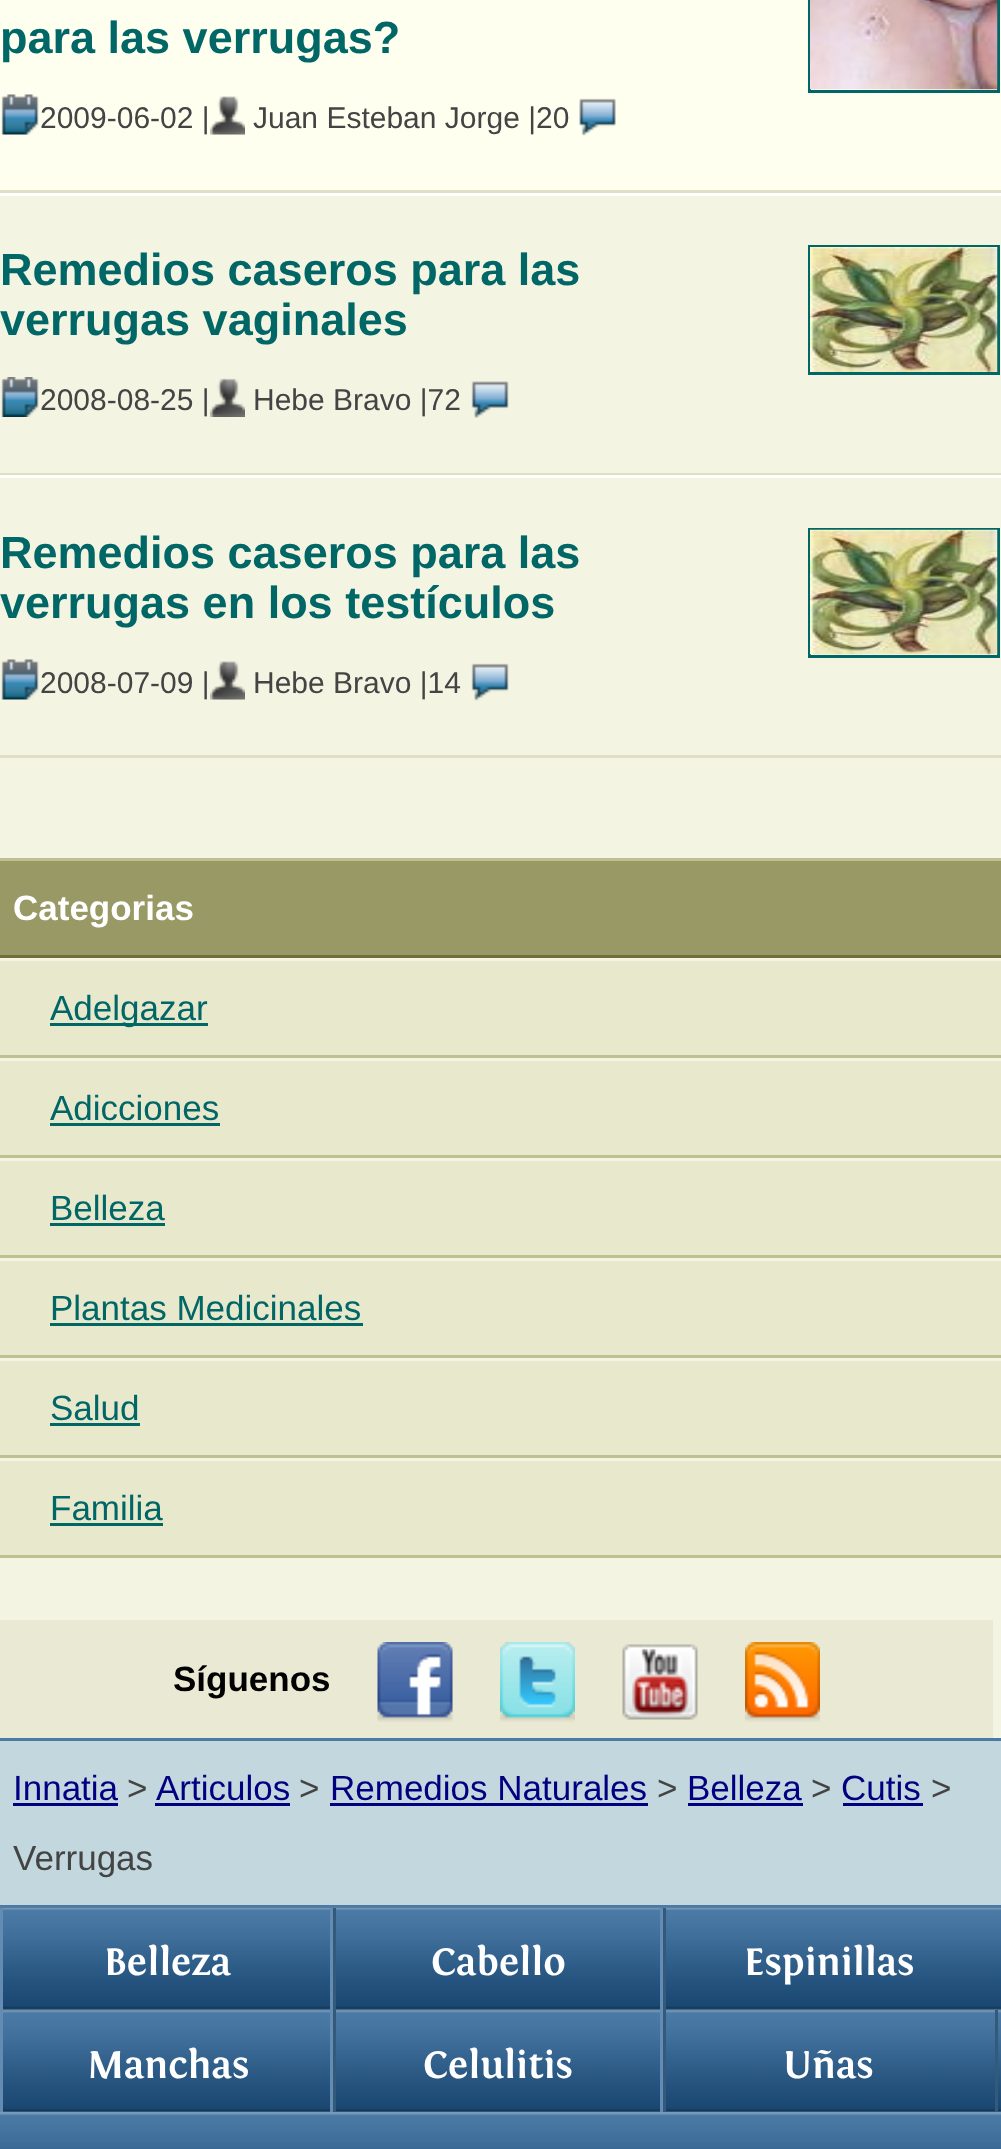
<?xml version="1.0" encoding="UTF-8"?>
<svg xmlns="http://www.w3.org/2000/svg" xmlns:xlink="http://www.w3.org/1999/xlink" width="1001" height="2149">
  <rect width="100%" height="100%" fill="#f4f4e3" />
  <rect width="1001" height="190" fill="#ffffef" />
  <rect y="190" width="1001" height="3" fill="#dfdfc3" />
  <rect x="809.5" y="-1.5" width="189" height="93" fill="none" stroke="#006666" stroke-width="3" />
  <image x="810" y="0" width="188" height="90" xlink:href="image1.png" />
  <image x="1" y="94" width="38" height="41" xlink:href="image2.png" />
  <image x="210" y="96" width="35" height="39" xlink:href="image3.png" />
  <image x="579" y="98" width="37" height="38" xlink:href="image4.png" />
  <rect y="193" width="1001" height="3" fill="#ffffff" />
  <rect y="473" width="1001" height="2" fill="#dfdfc3" />
  <rect x="809.5" y="246.5" width="189" height="127" fill="none" stroke="#006666" stroke-width="3" />
  <image x="810" y="247" width="188" height="125" xlink:href="image5.png" />
  <image x="1" y="377" width="38" height="40" xlink:href="image6.png" />
  <image x="210" y="378" width="35" height="39" xlink:href="image7.png" />
  <image x="471" y="381" width="38" height="37" xlink:href="image8.png" />
  <rect y="475" width="1001" height="3" fill="#ffffff" />
  <rect y="755" width="1001" height="3" fill="#dfdfc3" />
  <rect x="809.5" y="529.5" width="189" height="127" fill="none" stroke="#006666" stroke-width="3" />
  <image x="810" y="529" width="188" height="126" xlink:href="image9.png" />
  <image x="1" y="659" width="38" height="41" xlink:href="image10.png" />
  <image x="210" y="661" width="35" height="39" xlink:href="image11.png" />
  <image x="471" y="663" width="38" height="38" xlink:href="image12.png" />
  <rect y="861" width="1001" height="94" fill="#999966" />
  <rect y="858" width="1001" height="3" fill="#bfbf8f" />
  <rect y="955" width="1001" height="3" fill="#6f6f37" />
  <rect y="961" width="1001" height="594" fill="#e8e8cd" />
  <rect y="1055" width="1001" height="3" fill="#bfbf8f" />
  <rect x="50" y="1023" width="158" height="3" fill="#006666" />
  <rect y="1058" width="1001" height="3" fill="#f4f4e3" />
  <rect y="1155" width="1001" height="3" fill="#bfbf8f" />
  <rect x="50" y="1123" width="170" height="3" fill="#006666" />
  <rect y="1158" width="1001" height="3" fill="#f4f4e3" />
  <rect y="1255" width="1001" height="3" fill="#bfbf8f" />
  <rect x="50" y="1223" width="115" height="3" fill="#006666" />
  <rect y="1258" width="1001" height="3" fill="#f4f4e3" />
  <rect y="1355" width="1001" height="3" fill="#bfbf8f" />
  <rect x="50" y="1323" width="313" height="3" fill="#006666" />
  <rect y="1358" width="1001" height="3" fill="#f4f4e3" />
  <rect y="1455" width="1001" height="3" fill="#bfbf8f" />
  <rect x="50" y="1423" width="90" height="3" fill="#006666" />
  <rect y="1458" width="1001" height="3" fill="#f4f4e3" />
  <rect y="1555" width="1001" height="3" fill="#bfbf8f" />
  <rect x="50" y="1523" width="113" height="3" fill="#006666" />
  <rect y="1620" width="993" height="118" fill="#e9e9d4" />
  <image x="377" y="1642" width="76" height="80" xlink:href="image13.png" />
  <image x="500" y="1642" width="75" height="80" xlink:href="image14.png" />
  <image x="622" y="1644" width="76" height="76" xlink:href="image15.png" />
  <image x="745" y="1642" width="75" height="80" xlink:href="image16.png" />
  <rect y="1741" width="1001" height="164" fill="#c3d7df" />
  <rect y="1738" width="1001" height="3" fill="#4b7aa6" />
  <rect y="1905" width="1001" height="2" fill="#4b7aa6" />
  <rect x="13" y="1803" width="105" height="3" fill="#000080" />
  <rect x="155" y="1803" width="135" height="3" fill="#000080" />
  <rect x="330" y="1803" width="318" height="3" fill="#000080" />
  <rect x="688" y="1803" width="115" height="3" fill="#000080" />
  <rect x="843" y="1803" width="80" height="3" fill="#000080" />
  <image x="0" y="1907" width="1001" height="205" xlink:href="image17.png" />
  <rect x="333" y="1908" width="3" height="205" fill="#33597b" />
  <rect y="1908" width="3" height="205" fill="#648cb2" />
  <rect x="663" y="1908" width="3" height="205" fill="#33597b" />
  <rect x="330" y="1908" width="3" height="205" fill="#648cb2" />
  <rect x="660" y="1908" width="3" height="205" fill="#648cb2" />
  <rect x="995" y="2010" width="3" height="103" fill="#33597b" />
  <image x="0" y="2112" width="1001" height="37" xlink:href="image18.png" />
  <text x="0" y="53" style="font-family: Liberation Sans; font-size: 45px; font-weight: bold; fill: #006666">para las verrugas?</text>
  <text x="40" y="128" style="font-family: Liberation Sans; font-size: 30px; fill: #444444">2009-06-02 |</text>
  <text x="253" y="128" style="font-family: Liberation Sans; font-size: 30px; fill: #444444">Juan Esteban Jorge |20</text>
  <text x="0" y="285" style="font-family: Liberation Sans; font-size: 45px; font-weight: bold; fill: #006666">Remedios caseros para las</text>
  <text x="0" y="335" style="font-family: Liberation Sans; font-size: 45px; font-weight: bold; fill: #006666">verrugas vaginales</text>
  <text x="40" y="410" style="font-family: Liberation Sans; font-size: 30px; fill: #444444">2008-08-25 |</text>
  <text x="253" y="410" style="font-family: Liberation Sans; font-size: 30px; fill: #444444">Hebe Bravo |72</text>
  <text x="0" y="568" style="font-family: Liberation Sans; font-size: 45px; font-weight: bold; fill: #006666">Remedios caseros para las</text>
  <text x="0" y="618" style="font-family: Liberation Sans; font-size: 45px; font-weight: bold; fill: #006666">verrugas en los testículos</text>
  <text x="40" y="693" style="font-family: Liberation Sans; font-size: 30px; fill: #444444">2008-07-09 |</text>
  <text x="253" y="693" style="font-family: Liberation Sans; font-size: 30px; fill: #444444">Hebe Bravo |14</text>
  <text x="13" y="920" style="font-family: Liberation Sans; font-size: 35px; font-weight: bold; fill: #ffffff">Categorias</text>
  <text x="50" y="1020" style="font-family: Liberation Sans; font-size: 35px; fill: #006666">Adelgazar</text>
  <text x="50" y="1120" style="font-family: Liberation Sans; font-size: 35px; fill: #006666">Adicciones</text>
  <text x="50" y="1220" style="font-family: Liberation Sans; font-size: 35px; fill: #006666">Belleza</text>
  <text x="50" y="1320" style="font-family: Liberation Sans; font-size: 35px; fill: #006666">Plantas Medicinales</text>
  <text x="50" y="1420" style="font-family: Liberation Sans; font-size: 35px; fill: #006666">Salud</text>
  <text x="50" y="1520" style="font-family: Liberation Sans; font-size: 35px; fill: #006666">Familia</text>
  <text x="173" y="1691" style="font-family: Liberation Sans; font-size: 35px; font-weight: bold; fill: #000000">Síguenos</text>
  <text x="13" y="1800" style="font-family: Liberation Sans; font-size: 35px; fill: #000080">Innatia</text>
  <text x="127" y="1800" style="font-family: Liberation Sans; font-size: 35px; fill: #444444">&gt;</text>
  <text x="156" y="1800" style="font-family: Liberation Sans; font-size: 35px; fill: #000080">Articulos</text>
  <text x="299" y="1800" style="font-family: Liberation Sans; font-size: 35px; fill: #444444">&gt;</text>
  <text x="330" y="1800" style="font-family: Liberation Sans; font-size: 35px; fill: #000080">Remedios Naturales</text>
  <text x="657" y="1800" style="font-family: Liberation Sans; font-size: 35px; fill: #444444">&gt;</text>
  <text x="687" y="1800" style="font-family: Liberation Sans; font-size: 35px; fill: #000080">Belleza</text>
  <text x="811" y="1800" style="font-family: Liberation Sans; font-size: 35px; fill: #444444">&gt;</text>
  <text x="841" y="1800" style="font-family: Liberation Sans; font-size: 35px; fill: #000080">Cutis</text>
  <text x="931" y="1800" style="font-family: Liberation Sans; font-size: 35px; fill: #444444">&gt;</text>
  <text x="13" y="1870" style="font-family: Liberation Sans; font-size: 35px; fill: #444444">Verrugas</text>
  <text x="104" y="1975" style="font-family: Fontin; font-size: 40px; font-weight: bold; fill: #ffffff">Belleza</text>
  <text x="431" y="1975" style="font-family: Fontin; font-size: 40px; font-weight: bold; fill: #ffffff">Cabello</text>
  <text x="744" y="1975" style="font-family: Fontin; font-size: 40px; font-weight: bold; fill: #ffffff">Espinillas</text>
  <text x="87" y="2078" style="font-family: Fontin; font-size: 40px; font-weight: bold; fill: #ffffff">Manchas</text>
  <text x="423" y="2078" style="font-family: Fontin; font-size: 40px; font-weight: bold; fill: #ffffff">Celulitis</text>
  <text x="783" y="2078" style="font-family: Fontin; font-size: 40px; font-weight: bold; fill: #ffffff">Uñas</text>
</svg>
